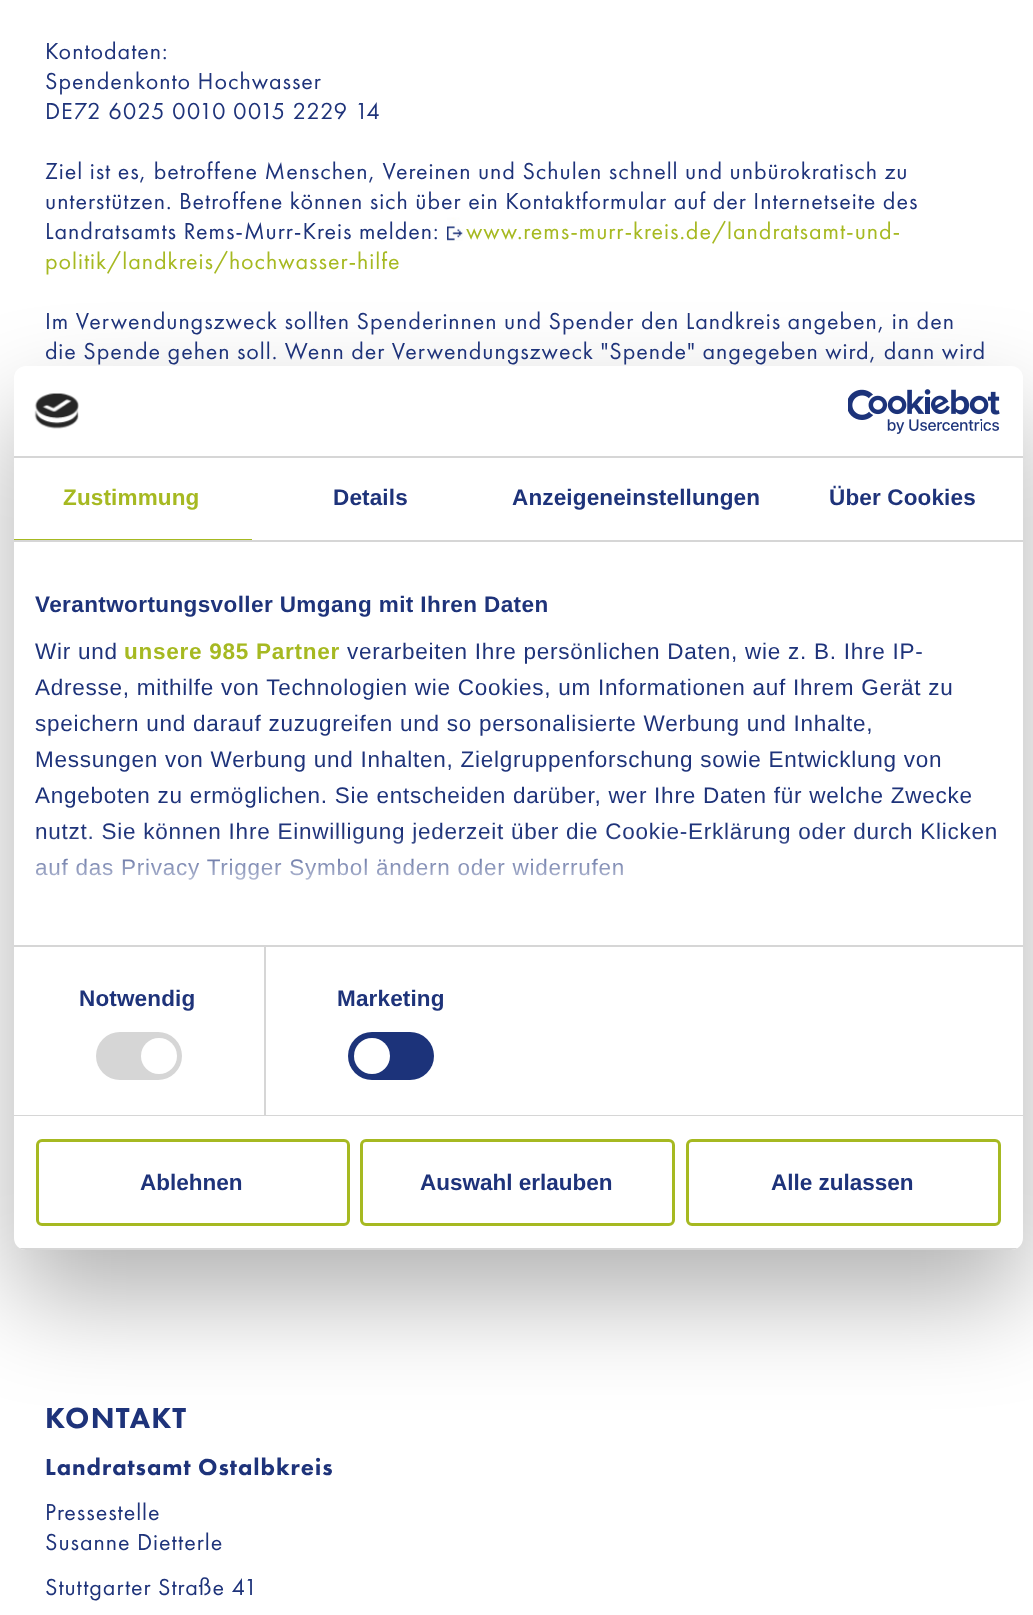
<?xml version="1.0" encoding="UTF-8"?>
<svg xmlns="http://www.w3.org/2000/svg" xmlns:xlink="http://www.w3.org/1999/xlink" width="1033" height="1615">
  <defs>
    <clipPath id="clip1"><rect x="14" y="366" width="1009" height="884" rx="12" /></clipPath>
    <linearGradient id="g1" gradientUnits="userSpaceOnUse" x1="508" y1="946" x2="508" y2="833"><stop offset="0" stop-color="#ffffff" /><stop offset="0.5" stop-color="#ffffff" stop-opacity="0.8" /><stop offset="1" stop-color="#ffffff" stop-opacity="0" /></linearGradient>
  </defs>
  <rect width="100%" height="100%" fill="#ffffff" />
  <image x="447" y="217" width="16" height="24" xlink:href="image1.png" />
  <rect x="14" y="414" width="1009" height="884" rx="12" fill="#000000" fill-opacity="0.3" filter="blur(51px)" />
  <rect x="14" y="366" width="1009" height="884" rx="12" fill="#ffffff" />
  <rect x="14" y="456" width="1009" height="2" fill="#d6d6d6" />
  <image x="34" y="393" width="45" height="36" xlink:href="image2.png" />
  <image x="848" y="389" width="152" height="45" xlink:href="image3.png" />
  <rect x="14" y="540" width="1009" height="2" fill="#d6d6d6" />
  <rect x="14" y="539" width="238" height="1" fill="#a6b921" />
  <rect x="14" y="945" width="1009" height="2" fill="#d6d6d6" />
  <rect x="14" y="1115" width="1009" height="1" fill="#d6d6d6" />
  <rect x="264" y="947" width="2" height="168" fill="#d6d6d6" />
  <rect x="96" y="1032" width="86" height="48" rx="24" fill="#d6d6d6" />
  <circle cx="159" cy="1056" r="18" fill="#ffffff" />
  <rect x="348" y="1032" width="86" height="48" rx="24" fill="#1c337a" />
  <circle cx="372" cy="1056" r="18" fill="#ffffff" />
  <g clip-path="url(#clip1)">
    <rect x="14" y="1248" width="1009" height="2" fill="#d6d6d6" />
  </g>
  <rect x="37.5" y="1140.5" width="311" height="84" rx="4.5" fill="none" stroke="#a6b921" stroke-width="3" />
  <rect x="361.5" y="1140.5" width="312" height="84" rx="4.5" fill="none" stroke="#a6b921" stroke-width="3" />
  <rect x="687.5" y="1140.5" width="312" height="84" rx="4.5" fill="none" stroke="#a6b921" stroke-width="3" />
  <text x="45" y="59" style="font-family: Futura PT; font-size: 24px; letter-spacing: 0.95px; fill: #1e337a">Kontodaten:</text>
  <text x="45" y="89" style="font-family: Futura PT; font-size: 24px; letter-spacing: 0.95px; fill: #1e337a">Spendenkonto Hochwasser</text>
  <text x="45" y="119" style="font-family: Futura PT; font-size: 24px; letter-spacing: 0.95px; fill: #1e337a">DE72 6025 0010 0015 2229 14</text>
  <text x="45" y="179" style="font-family: Futura PT; font-size: 24px; letter-spacing: 0.95px; fill: #1e337a">Ziel ist es, betroffene Menschen, Vereinen und Schulen schnell und unbürokratisch zu</text>
  <text x="45" y="209" style="font-family: Futura PT; font-size: 24px; letter-spacing: 0.95px; fill: #1e337a">unterstützen. Betroffene können sich über ein Kontaktformular auf der Internetseite des</text>
  <text x="45" y="239" style="font-family: Futura PT; font-size: 24px; letter-spacing: 0.95px; fill: #1e337a">Landratsamts Rems-Murr-Kreis melden:</text>
  <text x="466" y="239" style="font-family: Futura PT; font-size: 24px; letter-spacing: 0.95px; fill: #a6b921">www.rems-murr-kreis.de/landratsamt-und-</text>
  <text x="45" y="269" style="font-family: Futura PT; font-size: 24px; letter-spacing: 0.95px; fill: #a6b921">politik/landkreis/hochwasser-hilfe</text>
  <text x="45" y="329" style="font-family: Futura PT; font-size: 24px; letter-spacing: 0.95px; fill: #1e337a">Im Verwendungszweck sollten Spenderinnen und Spender den Landkreis angeben, in den</text>
  <text x="45" y="359" style="font-family: Futura PT; font-size: 24px; letter-spacing: 0.95px; fill: #1e337a">die Spende gehen soll. Wenn der Verwendungszweck "Spende" angegeben wird, dann wird</text>
  <text x="45" y="1428" style="font-family: Futura PT; font-size: 30px; font-weight: 900; letter-spacing: 1.25px; fill: #1e337a">KONTAKT</text>
  <text x="45" y="1475" style="font-family: Futura PT; font-size: 24px; font-weight: 900; letter-spacing: 0.95px; fill: #1e337a">Landratsamt Ostalbkreis</text>
  <text x="45" y="1520" style="font-family: Futura PT; font-size: 24px; letter-spacing: 0.95px; fill: #1e337a">Pressestelle</text>
  <text x="45" y="1550" style="font-family: Futura PT; font-size: 24px; letter-spacing: 0.95px; fill: #1e337a">Susanne Dietterle</text>
  <text x="45" y="1595" style="font-family: Futura PT; font-size: 24px; letter-spacing: 0.95px; fill: #1e337a">Stuttgarter Straße 41</text>
  <text x="63" y="505" style="font-family: Liberation Sans; font-size: 22.5px; font-weight: bold; letter-spacing: 0.15px; fill: #a6b921">Zustimmung</text>
  <text x="333" y="505" style="font-family: Liberation Sans; font-size: 22.5px; font-weight: bold; letter-spacing: 0.15px; fill: #1e337a">Details</text>
  <text x="512" y="505" style="font-family: Liberation Sans; font-size: 22.5px; font-weight: bold; letter-spacing: 0.15px; fill: #1e337a">Anzeigeneinstellungen</text>
  <text x="829" y="505" style="font-family: Liberation Sans; font-size: 22.5px; font-weight: bold; letter-spacing: 0.15px; fill: #1e337a">Über Cookies</text>
  <text x="35" y="612" style="font-family: Liberation Sans; font-size: 22.5px; font-weight: bold; letter-spacing: 0.4px; fill: #1e337a">Verantwortungsvoller Umgang mit Ihren Daten</text>
  <text x="35" y="659" style="font-family: Liberation Sans; font-size: 22.5px; letter-spacing: 0.75px; fill: #1e337a">Wir und</text>
  <text x="124" y="659" style="font-family: Liberation Sans; font-size: 22.5px; font-weight: bold; letter-spacing: 0.75px; fill: #a6b921">unsere 985 Partner</text>
  <text x="347" y="659" style="font-family: Liberation Sans; font-size: 22.5px; letter-spacing: 0.75px; fill: #1e337a">verarbeiten Ihre persönlichen Daten, wie z. B. Ihre IP-</text>
  <text x="35" y="695" style="font-family: Liberation Sans; font-size: 22.5px; letter-spacing: 0.75px; fill: #1e337a">Adresse, mithilfe von Technologien wie Cookies, um Informationen auf Ihrem Gerät zu</text>
  <text x="35" y="731" style="font-family: Liberation Sans; font-size: 22.5px; letter-spacing: 0.75px; fill: #1e337a">speichern und darauf zuzugreifen und so personalisierte Werbung und Inhalte,</text>
  <text x="35" y="767" style="font-family: Liberation Sans; font-size: 22.5px; letter-spacing: 0.75px; fill: #1e337a">Messungen von Werbung und Inhalten, Zielgruppenforschung sowie Entwicklung von</text>
  <text x="35" y="803" style="font-family: Liberation Sans; font-size: 22.5px; letter-spacing: 0.75px; fill: #1e337a">Angeboten zu ermöglichen. Sie entscheiden darüber, wer Ihre Daten für welche Zwecke</text>
  <text x="35" y="839" style="font-family: Liberation Sans; font-size: 22.5px; letter-spacing: 0.75px; fill: #1e337a">nutzt. Sie können Ihre Einwilligung jederzeit über die Cookie-Erklärung oder durch Klicken</text>
  <text x="35" y="875" style="font-family: Liberation Sans; font-size: 22.5px; letter-spacing: 0.75px; fill: #1e337a">auf das Privacy Trigger Symbol ändern oder widerrufen</text>
  <rect x="35" y="835" width="961" height="45" fill="url(#g1)" />
  <text x="79" y="1006" style="font-family: Liberation Sans; font-size: 22.5px; font-weight: bold; letter-spacing: 0.15px; fill: #1e337a">Notwendig</text>
  <text x="337" y="1006" style="font-family: Liberation Sans; font-size: 22.5px; font-weight: bold; letter-spacing: 0.15px; fill: #1e337a">Marketing</text>
  <text x="140" y="1190" style="font-family: Liberation Sans; font-size: 22.5px; font-weight: bold; fill: #1e337a">Ablehnen</text>
  <text x="420" y="1190" style="font-family: Liberation Sans; font-size: 22.5px; font-weight: bold; fill: #1e337a">Auswahl erlauben</text>
  <text x="771" y="1190" style="font-family: Liberation Sans; font-size: 22.5px; font-weight: bold; fill: #1e337a">Alle zulassen</text>
</svg>
